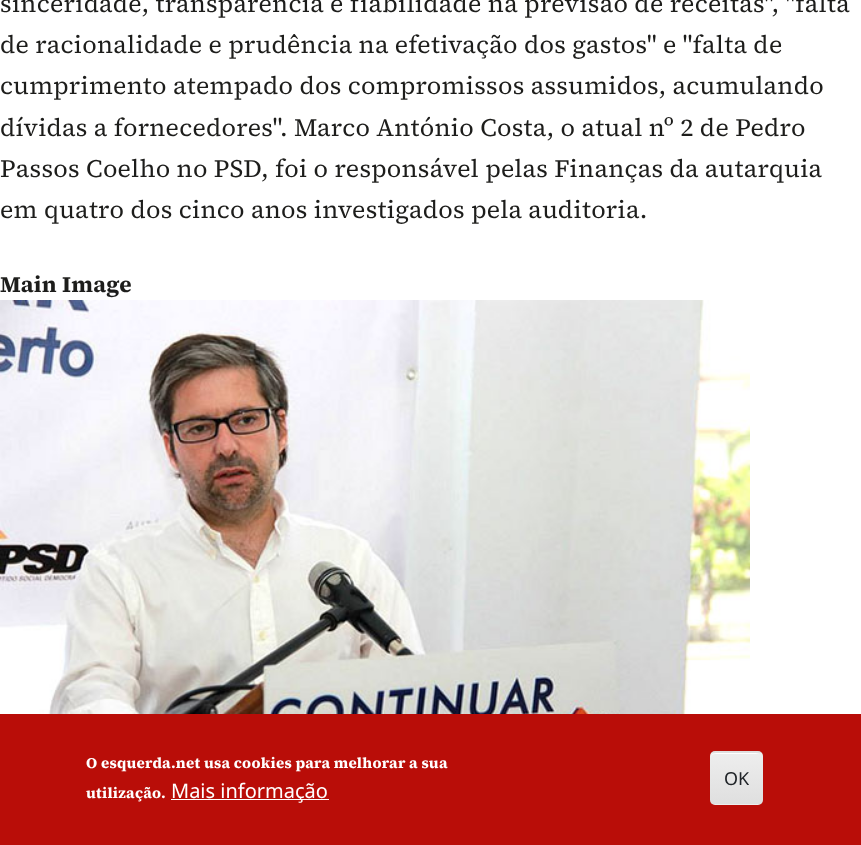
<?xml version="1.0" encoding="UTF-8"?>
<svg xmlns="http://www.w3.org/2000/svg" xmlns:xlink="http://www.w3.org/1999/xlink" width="861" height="845">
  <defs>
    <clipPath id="clip1"><rect x="710" y="751" width="53" height="54" rx="5" /></clipPath>
    <linearGradient id="g1" gradientUnits="userSpaceOnUse" x1="736" y1="701" x2="736" y2="753"><stop offset="0.05" stop-color="#ededed" /><stop offset="1" stop-color="#dfdfdf" /></linearGradient>
    <linearGradient id="g2" gradientUnits="userSpaceOnUse" x1="736" y1="753" x2="736" y2="804"><stop offset="0.05" stop-color="#ededed" /><stop offset="1" stop-color="#dfdfdf" /></linearGradient>
    <linearGradient id="g3" gradientUnits="userSpaceOnUse" x1="736" y1="804" x2="736" y2="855"><stop offset="0.05" stop-color="#ededed" /><stop offset="1" stop-color="#dfdfdf" /></linearGradient>
  </defs>
  <rect width="100%" height="100%" fill="#ffffff" />
  <image x="0" y="300" width="750" height="414" xlink:href="image1.png" />
  <rect y="714" width="861" height="131" fill="#b90d08" />
  <rect x="171" y="799" width="158" height="1" fill="#ffffff" />
  <g clip-path="url(#clip1)">
    <rect x="710" y="751" width="53" height="2" fill="url(#g1)" />
    <rect x="710" y="753" width="53" height="51" fill="url(#g2)" />
    <rect x="710" y="804" width="53" height="1" fill="url(#g3)" />
  </g>
  <path d="M 715 754 h 43 c 2 0 3 1 3 4 c 0 -6 -6 -5 -11 -5 h -28 c -5 0 -11 -1 -11 5 c 0 -3 2 -4 4 -4 z" fill="#ffffff" />
  <text x="0" y="12" style="font-family: 'Source Serif 4'; font-size: 25px; letter-spacing: 0.25px; fill: #1d1d1b">sinceridade, transparência e fiabilidade na previsão de receitas", "falta</text>
  <text x="0" y="53" style="font-family: 'Source Serif 4'; font-size: 25px; letter-spacing: 0.25px; fill: #1d1d1b">de racionalidade e prudência na efetivação dos gastos" e "falta de</text>
  <text x="0" y="94" style="font-family: 'Source Serif 4'; font-size: 25px; letter-spacing: 0.25px; fill: #1d1d1b">cumprimento atempado dos compromissos assumidos, acumulando</text>
  <text x="0" y="136" style="font-family: 'Source Serif 4'; font-size: 25px; letter-spacing: 0.25px; fill: #1d1d1b">dívidas a fornecedores". Marco António Costa, o atual nº 2 de Pedro</text>
  <text x="0" y="177" style="font-family: 'Source Serif 4'; font-size: 25px; letter-spacing: 0.25px; fill: #1d1d1b">Passos Coelho no PSD, foi o responsável pelas Finanças da autarquia</text>
  <text x="0" y="218" style="font-family: 'Source Serif 4'; font-size: 25px; letter-spacing: 0.25px; fill: #1d1d1b">em quatro dos cinco anos investigados pela auditoria.</text>
  <text x="0" y="292" style="font-family: 'Source Serif 4'; font-size: 22.5px; font-weight: bold; letter-spacing: 0.25px; fill: #1d1d1b">Main Image</text>
  <text x="86" y="768" style="font-family: 'Source Serif 4'; font-size: 15px; font-weight: bold; letter-spacing: 0.25px; fill: #ffffff">O esquerda.net usa cookies para melhorar a sua</text>
  <text x="86" y="798" style="font-family: 'Source Serif 4'; font-size: 15px; font-weight: bold; letter-spacing: 0.25px; fill: #ffffff">utilização.</text>
  <text x="171" y="798" style="font-family: Noto Sans; font-size: 20px; fill: #ffffff">Mais informação</text>
  <text x="724" y="785" style="font-family: Noto Sans; font-size: 18px; fill: #212529">OK</text>
</svg>
